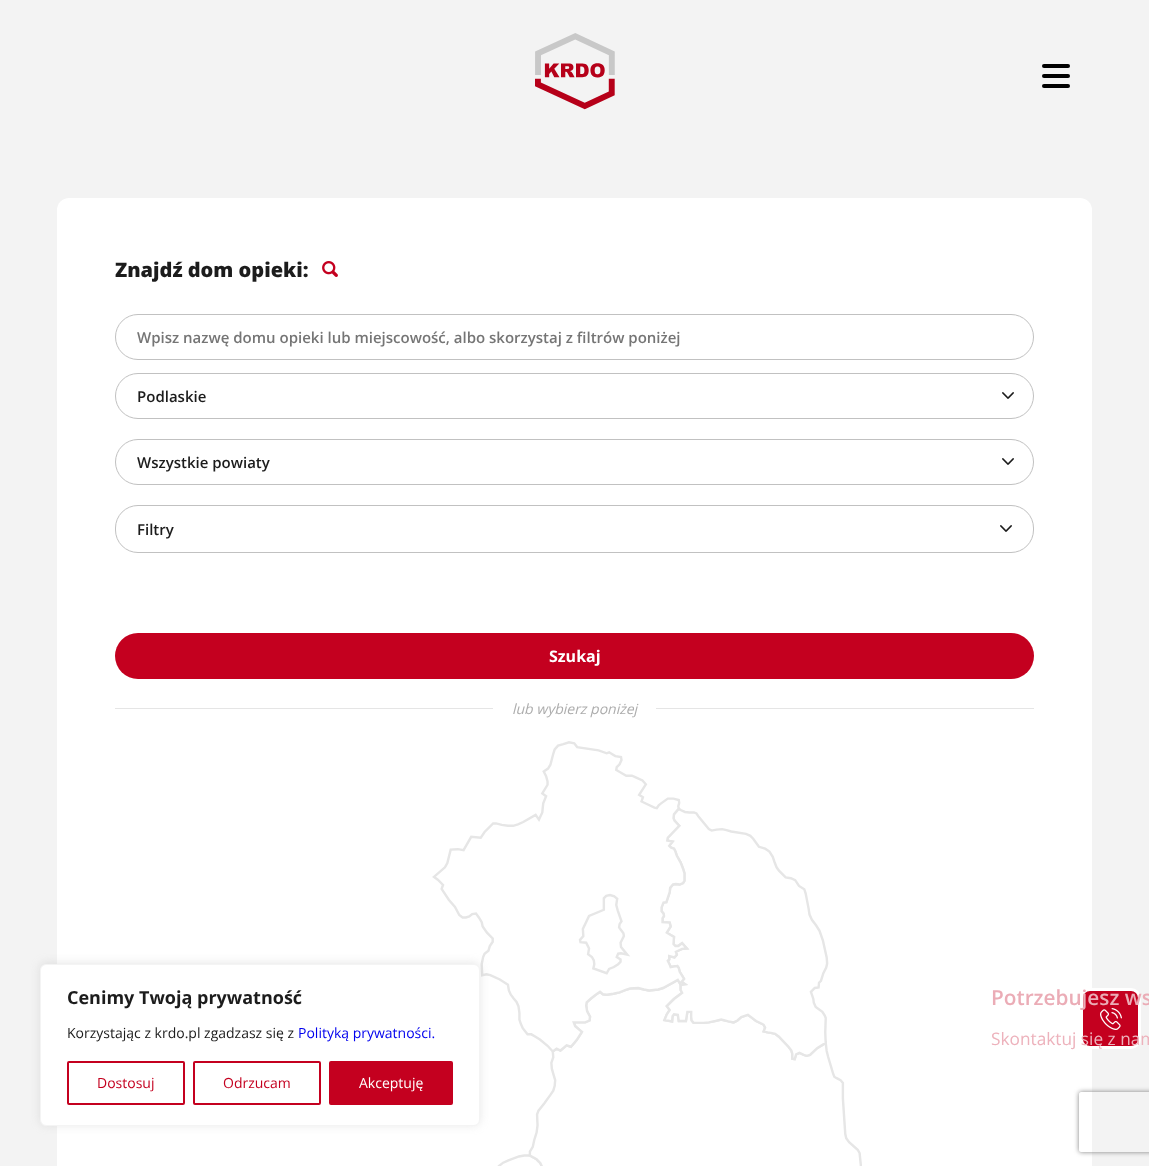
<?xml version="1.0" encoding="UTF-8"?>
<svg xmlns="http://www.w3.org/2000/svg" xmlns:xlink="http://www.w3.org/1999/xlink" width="1149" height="1166">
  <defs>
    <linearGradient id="g1" gradientUnits="userSpaceOnUse" x1="574" y1="-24" x2="575" y2="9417"><stop offset="0" stop-color="#f3f3f3" /><stop offset="0.5" stop-color="#f3f3f3" /><stop offset="1" stop-color="#e6e6e6" /></linearGradient>
    <clipPath id="clip1"><path d="M 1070 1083 h 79 v 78 h -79 z m 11 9 h 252 c 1 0 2 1 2 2 v 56 c 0 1 -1 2 -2 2 h -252 c -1 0 -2 -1 -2 -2 v -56 c 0 -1 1 -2 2 -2 z" clip-rule="evenodd" /></clipPath>
  </defs>
  <rect width="100%" height="100%" fill="#ffffff" />
  <rect width="1149" height="1166" fill="url(#g1)" />
  <image x="535" y="33" width="80" height="77" xlink:href="image1.png" />
  <rect x="1042" y="84" width="28" height="4" rx="2" fill="#000000" />
  <rect x="1042" y="64" width="28" height="4" rx="2" fill="#000000" />
  <rect x="1042" y="74" width="28" height="4" rx="2" fill="#000000" />
  <rect x="57" y="198" width="1035" height="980" rx="12" fill="#ffffff" />
  <image x="322" y="261" width="16" height="16" xlink:href="image2.png" />
  <rect x="115.5" y="314.5" width="918" height="45" rx="22.5" fill="none" stroke="#c1c1c1" />
  <image x="1002" y="392" width="12" height="7" xlink:href="image3.png" />
  <rect x="115.5" y="373.5" width="918" height="45" rx="22.5" fill="none" stroke="#c1c1c1" />
  <image x="1002" y="458" width="12" height="7" xlink:href="image3.png" />
  <rect x="115.5" y="439.5" width="918" height="45" rx="22.5" fill="none" stroke="#c1c1c1" />
  <rect x="115.5" y="505.5" width="918" height="47" rx="22.5" fill="none" stroke="#c1c1c1" />
  <image x="1000" y="525" width="12" height="7" xlink:href="image3.png" />
  <rect x="115" y="633" width="919" height="46" rx="23" fill="#c4001f" />
  <rect x="115" y="708" width="919" height="1" fill="#e5e5e5" />
  <rect x="493" y="708" width="163" height="1" fill="#ffffff" />
  <image x="432" y="741" width="430" height="425" xlink:href="image4.png" />
  <rect x="40" y="963" width="440" height="162" rx="6" fill="#acabab" fill-opacity="0.3" filter="blur(5px)" />
  <rect x="40.5" y="964.5" width="439" height="161" rx="5.5" fill="#ffffff" stroke="#f4f4f4" />
  <rect x="68" y="1062" width="116" height="42" rx="1" fill="none" stroke="#c4001f" stroke-width="2" />
  <rect x="194" y="1062" width="126" height="42" rx="1" fill="none" stroke="#c4001f" stroke-width="2" />
  <rect x="330" y="1062" width="122" height="42" rx="1" fill="#c4001f" stroke="#c4001f" stroke-width="2" />
  <rect x="1081.5" y="989.5" width="58" height="58" rx="8.5" fill="#c4001f" stroke="#ffffff" stroke-width="3" />
  <image x="1100" y="1008" width="22" height="22" xlink:href="image5.png" />
  <g clip-path="url(#clip1)">
    <rect x="1079" y="1092" width="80" height="60" rx="2" fill="#808080" filter="blur(2.5px)" />
  </g>
  <text x="115" y="277" style="font-family: Open Sans; font-size: 20px; font-weight: 800; fill: #1c1c1c">Znajdź dom opieki:</text>
  <text x="137" y="343" style="font-family: Open Sans; font-size: 15px; font-weight: 600; fill: #757575">Wpisz nazwę domu opieki lub miejscowość, albo skorzystaj z filtrów poniżej</text>
  <text x="137" y="402" style="font-family: Open Sans; font-size: 15px; font-weight: 600; fill: #1c1c1c">Podlaskie</text>
  <text x="137" y="468" style="font-family: Open Sans; font-size: 15px; font-weight: 600; fill: #1c1c1c">Wszystkie powiaty</text>
  <text x="137" y="535" style="font-family: Open Sans; font-size: 15px; font-weight: 600; fill: #1c1c1c">Filtry</text>
  <text x="549" y="662" style="font-family: Open Sans; font-size: 16px; font-weight: bold; fill: #ffffff">Szukaj</text>
  <text x="512" y="714" style="font-family: Open Sans; font-size: 14px; font-style: italic; fill: #acacac">lub wybierz poniżej</text>
  <text x="67" y="1004" style="font-family: Open Sans; font-size: 18px; font-weight: bold; fill: #1c1c1c">Cenimy Twoją prywatność</text>
  <text x="67" y="1038" style="font-family: Open Sans; font-size: 14px; fill: #1c1c1c">Korzystając z krdo.pl zgadzasz się z</text>
  <text x="298" y="1038" style="font-family: Open Sans; font-size: 14px; fill: #0000ee">Polityką prywatności.</text>
  <text x="97" y="1088" style="font-family: Open Sans; font-size: 14px; fill: #c4001f">Dostosuj</text>
  <text x="223" y="1088" style="font-family: Open Sans; font-size: 14px; fill: #c4001f">Odrzucam</text>
  <text x="359" y="1088" style="font-family: Open Sans; font-size: 14px; fill: #ffffff">Akceptuję</text>
  <text x="991" y="1005" style="font-family: Open Sans; font-size: 20.75px; font-weight: 600; fill: #ebacb6">Potrzebujesz ws</text>
  <text x="991" y="1045" style="font-family: Open Sans; font-size: 17.25px; fill: #edb2bc">Skontaktuj się z nam</text>
</svg>
